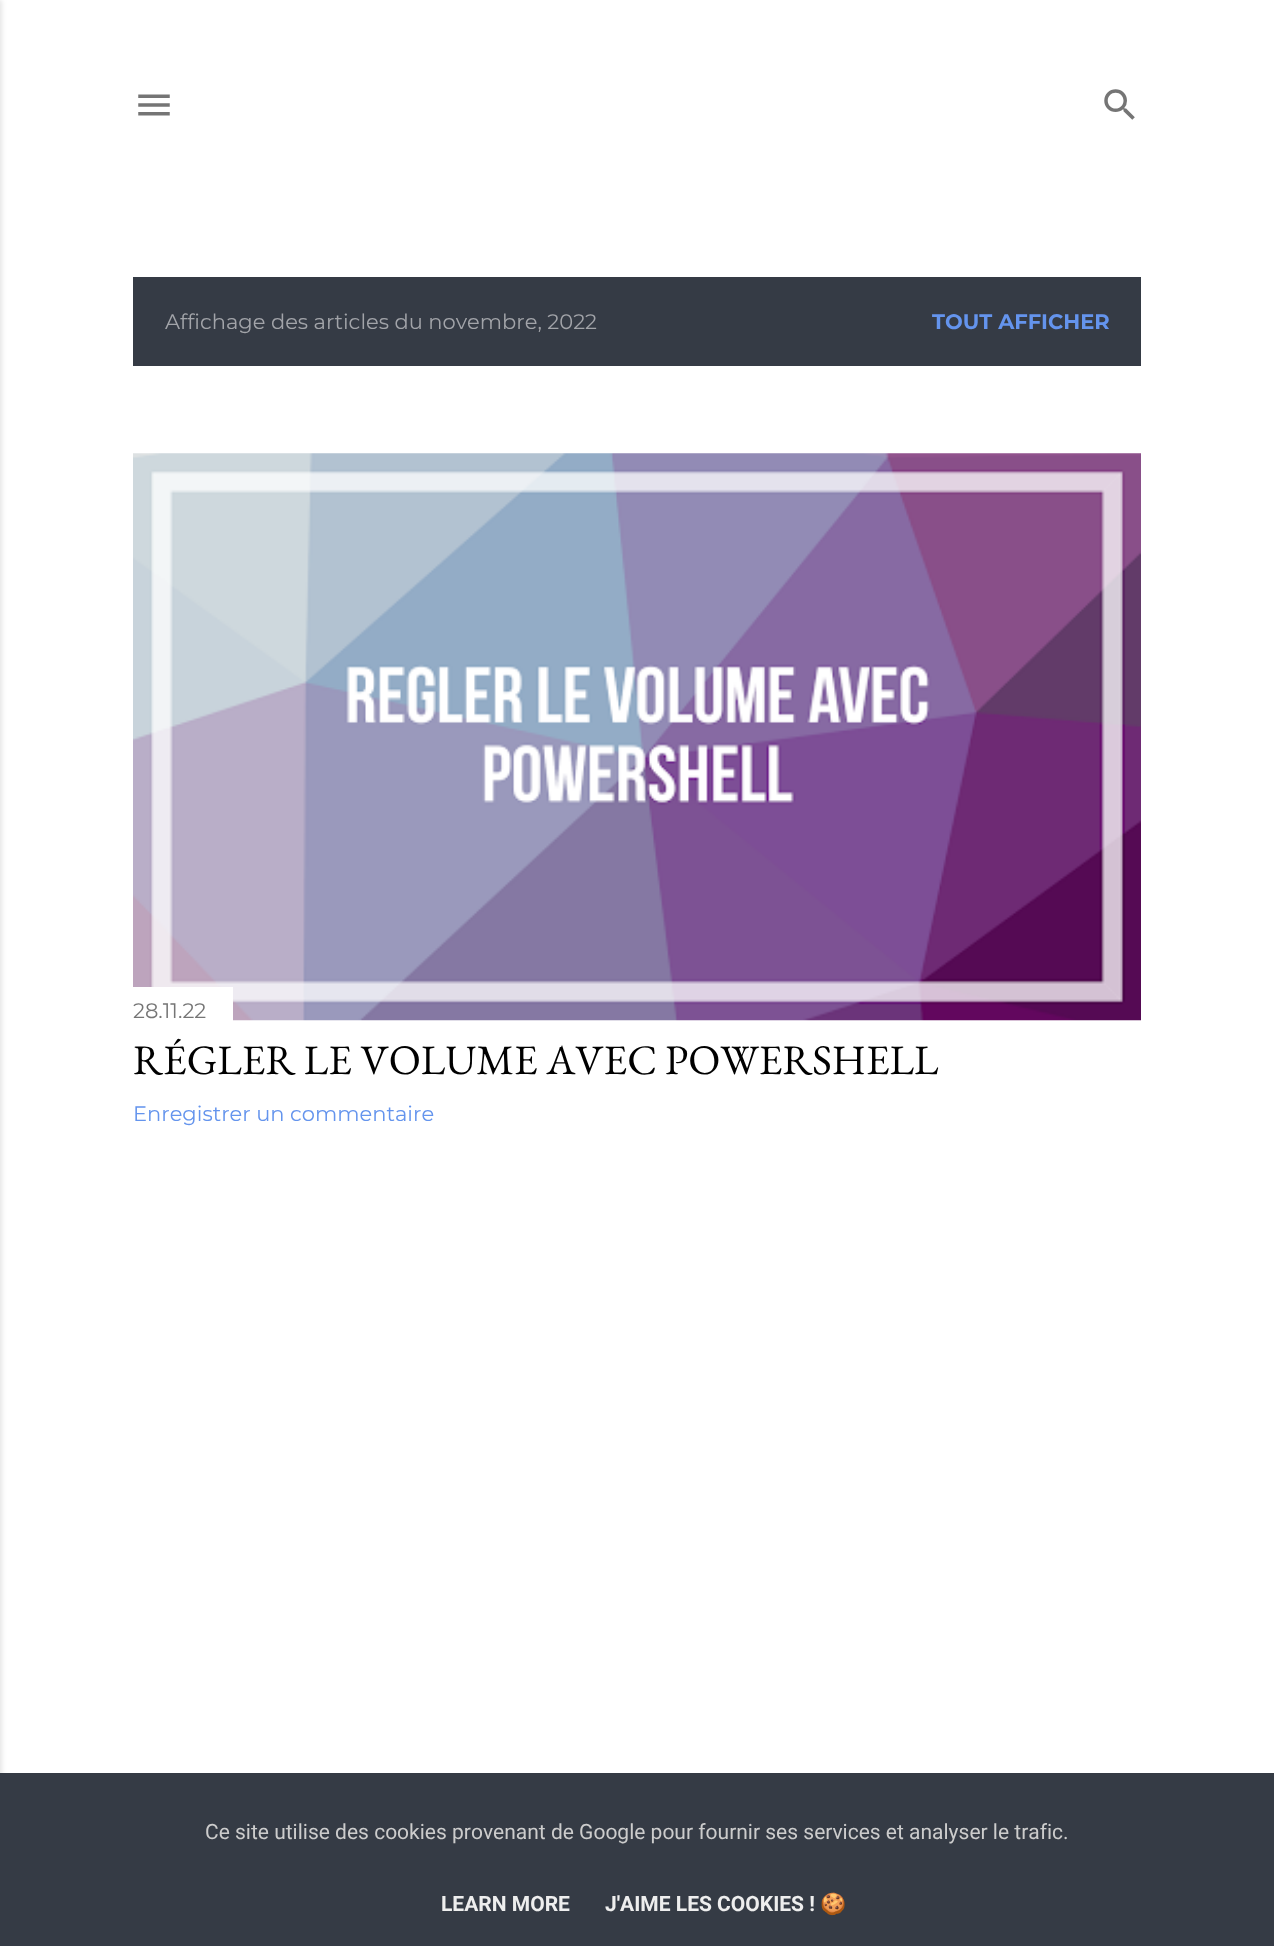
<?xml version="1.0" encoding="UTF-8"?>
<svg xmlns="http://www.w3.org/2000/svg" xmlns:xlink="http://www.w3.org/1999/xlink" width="1274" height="1946">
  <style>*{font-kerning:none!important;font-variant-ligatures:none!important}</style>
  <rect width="100%" height="100%" fill="#ffffff" />
  <rect x="-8" width="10" height="1946" fill="#000000" fill-opacity="0.1" filter="blur(2.5px)" />
  <image x="138" y="94" width="32" height="22" xlink:href="image1.png" />
  <image x="1104" y="89" width="31" height="31" xlink:href="image2.png" />
  <rect x="133" y="277" width="1008" height="89" fill="#353b45" />
  <image x="133" y="453" width="1008" height="568" xlink:href="image3.png" />
  <rect x="133" y="987" width="100" height="34" fill="#ffffff" />
  <rect y="1773" width="1274" height="173" fill="#353b45" />
  <text x="165" y="329" style="font-family: Montserrat; font-size: 21px; fill: #a2a4a9">Affichage des articles du novembre, 2022</text>
  <text x="932" y="329" style="font-family: Montserrat; font-size: 21px; font-weight: bold; fill: #6494ed">TOUT AFFICHER</text>
  <text x="133" y="1018" style="font-family: Montserrat; font-size: 21px; fill: #757575">28.11.22</text>
  <text x="133" y="1074" style="font-family: EB Garamond; font-size: 42px; fill: #000000">RÉGLER LE VOLUME AVEC</text>
  <text x="665" y="1074" style="font-family: EB Garamond; font-size: 42px; fill: #000000">POWERSHELL</text>
  <text x="133" y="1121" style="font-family: Montserrat; font-size: 21px; fill: #6494ed">Enregistrer un commentaire</text>
  <text x="205" y="1839" style="font-family: Roboto; font-size: 21px; fill: #cccccc">Ce site utilise des cookies provenant de Google pour fournir ses services et analyser le trafic.</text>
  <text x="441" y="1911" style="font-family: Roboto; font-size: 21px; font-weight: bold; fill: #eeeeee">LEARN MORE</text>
  <text x="605" y="1911" style="font-family: Roboto; font-size: 21px; font-weight: bold; fill: #eeeeee">J'AIME LES COOKIES !</text>
  <text x="820" y="1911" style="font-family: Noto Color Emoji; font-size: 21px; font-weight: bold; fill: #eeeeee">🍪</text>
</svg>
